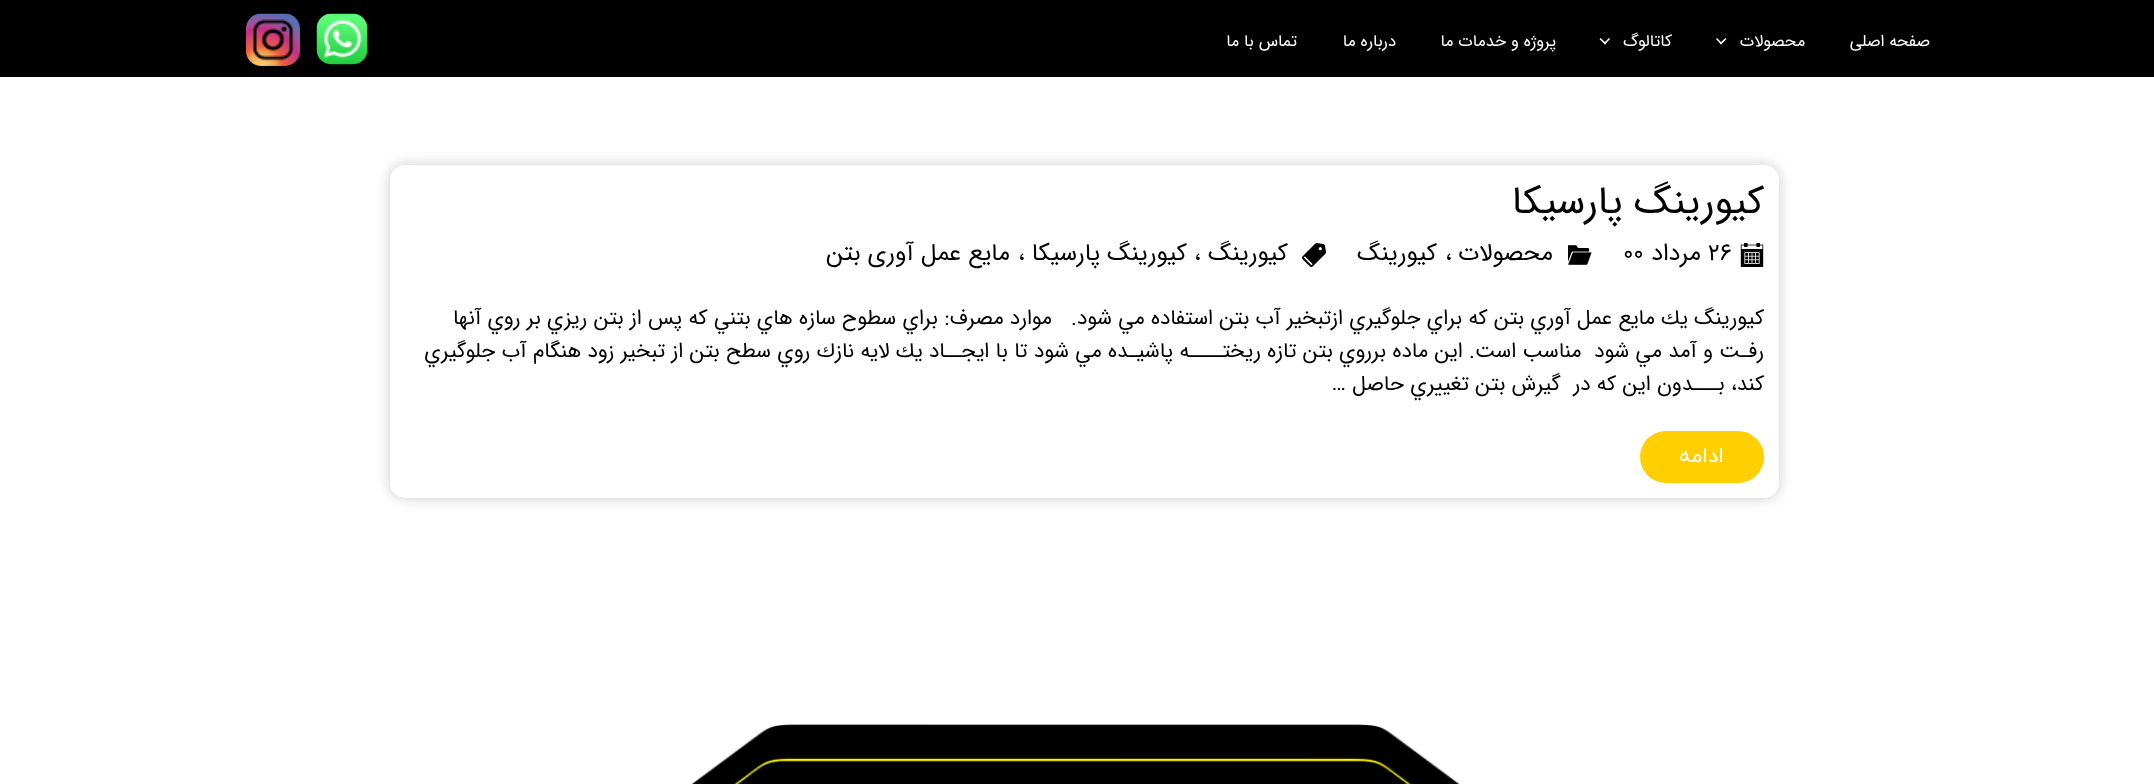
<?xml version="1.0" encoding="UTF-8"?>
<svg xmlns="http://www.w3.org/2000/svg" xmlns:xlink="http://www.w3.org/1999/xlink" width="2154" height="784">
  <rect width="100%" height="100%" fill="#ffffff" />
  <rect width="2154" height="77" fill="#000000" />
  <path d="M 1725.5 38 l 1 1 l -5.5 5.5 l -1 -1.5 z" fill="#ffffff" />
  <path d="M 1717 38 l 5 5 l -1 1.5 l -5 -5.5 z" fill="#ffffff" />
  <path d="M 1609 38 l 1 1 l -5 5.5 l -1 -1.5 z" fill="#ffffff" />
  <path d="M 1600.5 38 l 5.5 5 l -1 1.5 l -5.5 -5.5 z" fill="#ffffff" />
  <image x="316" y="13" width="52" height="52" xlink:href="image1.png" />
  <image x="246" y="13" width="54" height="53" xlink:href="image2.png" />
  <rect x="390" y="165" width="1389" height="333" rx="15" fill="#cccccc" filter="blur(7px)" />
  <rect x="390" y="165" width="1389" height="333" rx="15" fill="#ffffff" />
  <image x="1740" y="243" width="24" height="24" xlink:href="image3.png" />
  <image x="1568" y="245" width="24" height="20" xlink:href="image4.png" />
  <image x="1302" y="243" width="24" height="24" xlink:href="image5.png" />
  <rect x="1640" y="431" width="124" height="52" rx="26" fill="#ffcf01" />
  <image x="691" y="724" width="769" height="60" xlink:href="image6.png" />
  <text x="1930" y="46" style="font-family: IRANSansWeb; font-size: 16.5px; direction: rtl; fill: #ffffff">صفحه اصلی</text>
  <text x="1805" y="46" style="font-family: IRANSansWeb; font-size: 16.5px; direction: rtl; fill: #ffffff">محصولات</text>
  <text x="1672" y="46" style="font-family: IRANSansWeb; font-size: 16.5px; direction: rtl; fill: #ffffff">کاتالوگ</text>
  <text x="1556" y="46" style="font-family: IRANSansWeb; font-size: 16.5px; direction: rtl; fill: #ffffff">پروژه و خدمات ما</text>
  <text x="1396" y="46" style="font-family: IRANSansWeb; font-size: 16.5px; direction: rtl; fill: #ffffff">درباره ما</text>
  <text x="1297" y="46" style="font-family: IRANSansWeb; font-size: 16.5px; direction: rtl; fill: #ffffff">تماس با ما</text>
  <text x="1764" y="213" style="font-family: IRANSansWeb; font-size: 39px; direction: rtl; fill: #000000">کیورینگ پارسیکا</text>
  <text x="1708" y="260" style="font-family: IRANSansWeb; font-size: 24px; fill: #000000">۲۶</text>
  <text x="1701" y="260" style="font-family: IRANSansWeb; font-size: 24px; direction: rtl; fill: #000000">مرداد</text>
  <text x="1623" y="260" style="font-family: IRANSansWeb; font-size: 24px; fill: #000000">۰۰</text>
  <text x="1553" y="260" style="font-family: IRANSansWeb; font-size: 24px; direction: rtl; fill: #000000">محصولات</text>
  <text x="1445" y="260" style="font-family: IRANSansWeb; font-size: 24px; fill: #000000">،</text>
  <text x="1437" y="260" style="font-family: IRANSansWeb; font-size: 24px; direction: rtl; fill: #000000">کیورینگ</text>
  <text x="1288" y="260" style="font-family: IRANSansWeb; font-size: 24px; direction: rtl; fill: #000000">کیورینگ</text>
  <text x="1194" y="260" style="font-family: IRANSansWeb; font-size: 24px; fill: #000000">،</text>
  <text x="1187" y="260" style="font-family: IRANSansWeb; font-size: 24px; direction: rtl; fill: #000000">کیورینگ پارسیکا</text>
  <text x="1018" y="260" style="font-family: IRANSansWeb; font-size: 24px; fill: #000000">،</text>
  <text x="1010" y="260" style="font-family: IRANSansWeb; font-size: 24px; direction: rtl; fill: #000000">مایع عمل آوری بتن</text>
  <text x="1764" y="324" style="font-family: IRANSansWeb; font-size: 21px; direction: rtl; fill: #000000" xml:space="preserve">کیورینگ يك مايع عمل آوري بتن كه براي جلوگيري ازتبخير آب بتن استفاده مي شود.   موارد مصرف: براي سطوح سازه هاي بتني كه پس از بتن ريزي بر روي آنها</text>
  <text x="1764" y="357" style="font-family: IRANSansWeb; font-size: 21px; direction: rtl; fill: #000000" xml:space="preserve">رفـت و آمد مي شود  مناسب است. اين ماده برروي بتن تازه ريختــــه پاشيـده مي شود تا با ايجــاد يك لايه نازك روي سطح بتن از تبخير زود هنگام آب جلوگيري</text>
  <text x="1764" y="390" style="font-family: IRANSansWeb; font-size: 21px; direction: rtl; fill: #000000" xml:space="preserve">كند، بـــدون اين كه در  گيرش بتن تغييري حاصل …</text>
  <text x="1724" y="462" style="font-family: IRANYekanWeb; font-size: 21px; direction: rtl; fill: #ffffff">ادامه</text>
</svg>
